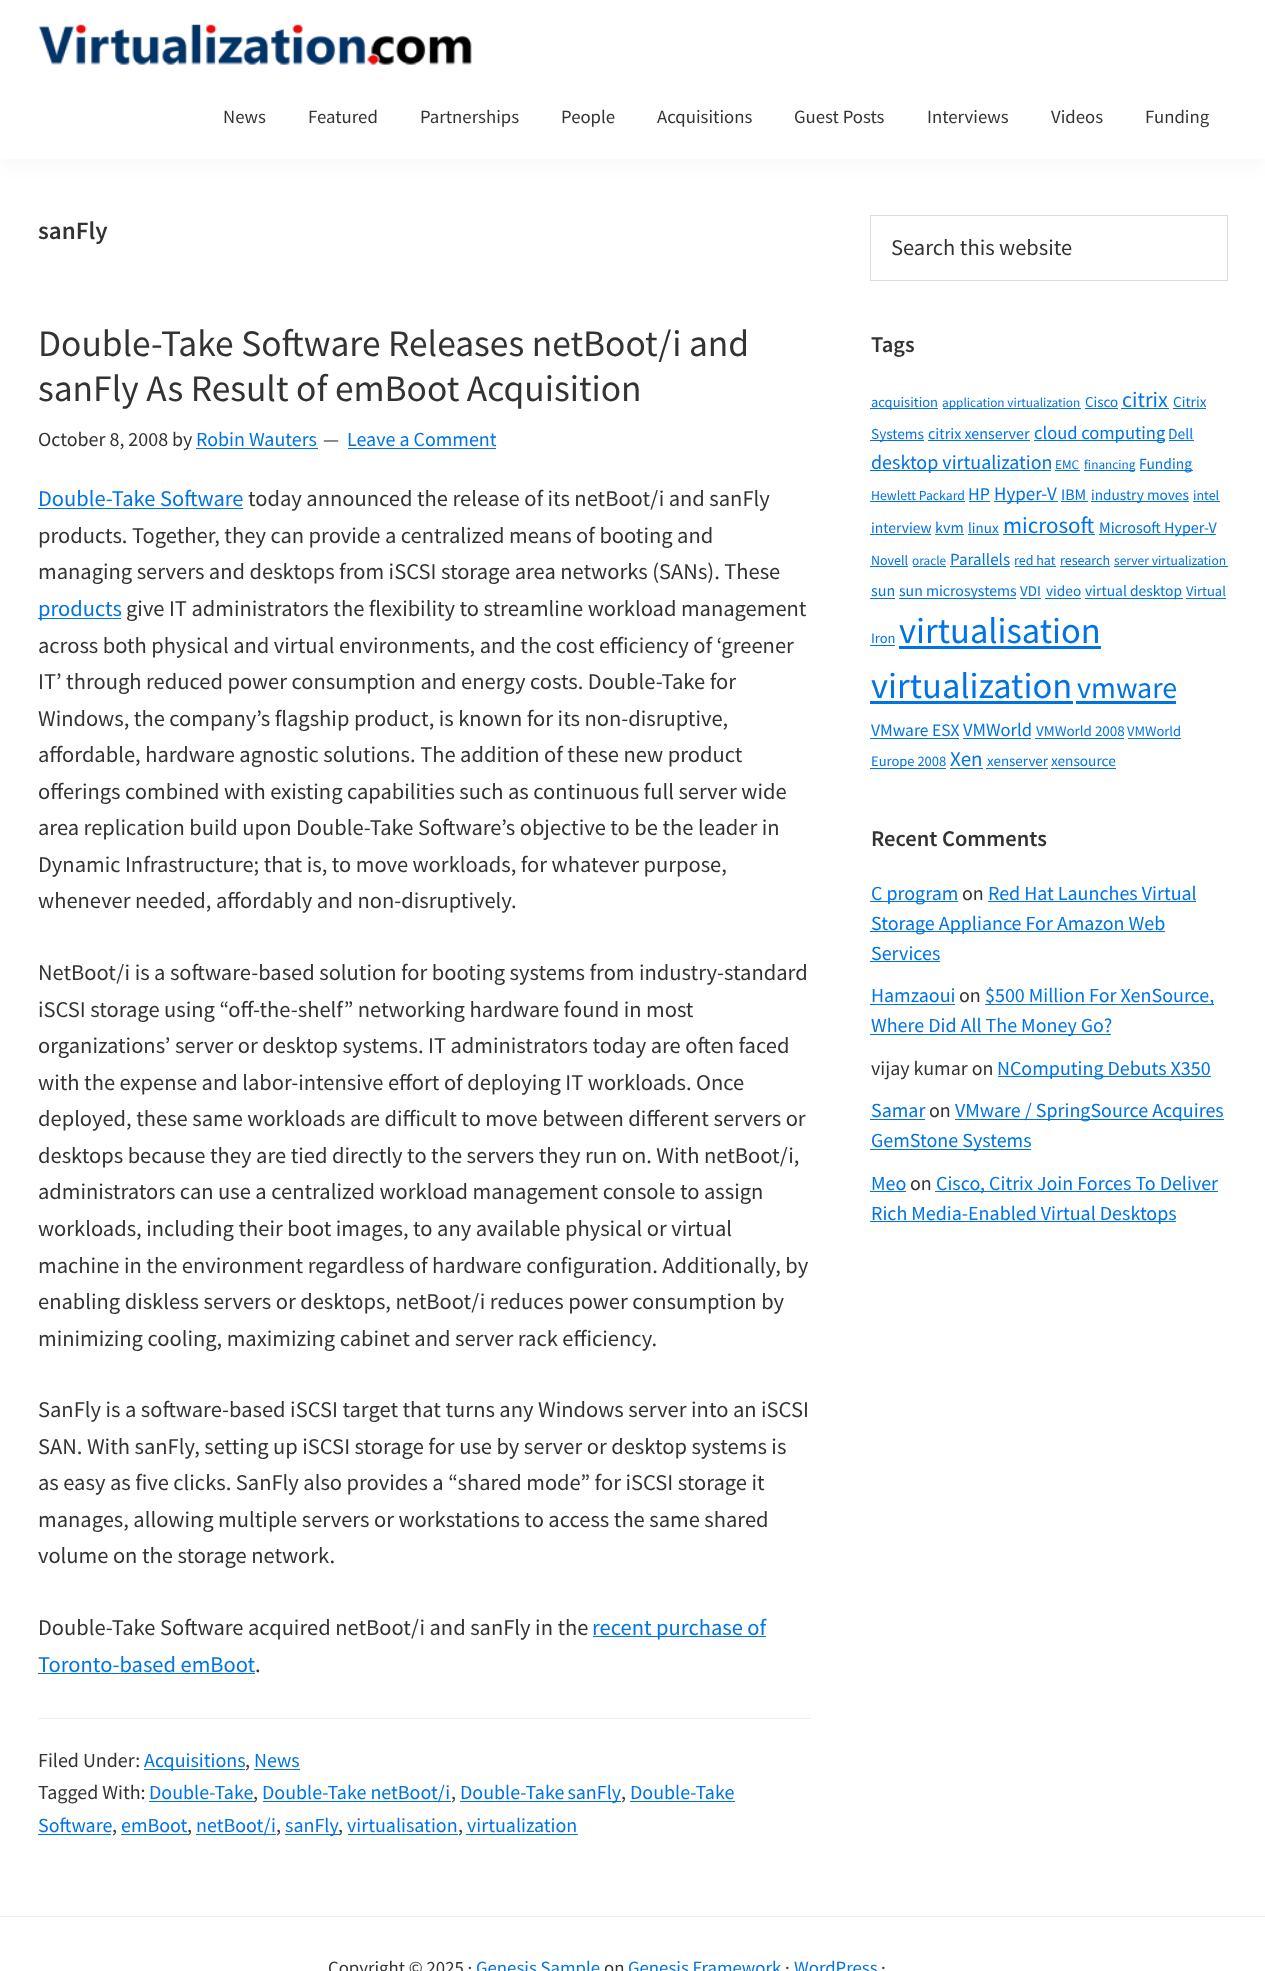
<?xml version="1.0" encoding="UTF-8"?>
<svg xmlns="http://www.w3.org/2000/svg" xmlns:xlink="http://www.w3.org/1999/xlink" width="1265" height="1971">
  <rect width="100%" height="100%" fill="#ffffff" />
  <rect width="1265" height="159" fill="#000000" fill-opacity="0.05" filter="blur(12.5px)" />
  <rect width="1265" height="159" fill="#ffffff" />
  <image x="38" y="24" width="434" height="41" xlink:href="image1.png" />
  <rect x="196" y="448" width="122" height="1" fill="#0073e5" />
  <rect x="348" y="448" width="148" height="1" fill="#0073e5" />
  <rect x="38" y="508" width="205" height="1" fill="#0073e5" />
  <rect x="38" y="618" width="83" height="1" fill="#0073e5" />
  <rect x="593" y="1636" width="173" height="1" fill="#0073e5" />
  <rect x="38" y="1673" width="217" height="1" fill="#0073e5" />
  <rect x="38" y="1718" width="773" height="1" fill="#eeeeee" />
  <rect x="144" y="1769" width="101" height="1" fill="#0073e5" />
  <rect x="254" y="1769" width="46" height="1" fill="#0073e5" />
  <rect x="149" y="1801" width="105" height="1" fill="#0073e5" />
  <rect x="263" y="1801" width="188" height="1" fill="#0073e5" />
  <rect x="460" y="1801" width="161" height="1" fill="#0073e5" />
  <rect x="630" y="1801" width="105" height="1" fill="#0073e5" />
  <rect x="38" y="1834" width="73" height="1" fill="#0073e5" />
  <rect x="121" y="1834" width="67" height="1" fill="#0073e5" />
  <rect x="196" y="1834" width="80" height="1" fill="#0073e5" />
  <rect x="285" y="1834" width="54" height="1" fill="#0073e5" />
  <rect x="348" y="1834" width="110" height="1" fill="#0073e5" />
  <rect x="466" y="1834" width="112" height="1" fill="#0073e5" />
  <rect x="870.5" y="215.5" width="357" height="65" fill="none" stroke="#dddddd" />
  <rect x="870" y="408" width="68" height="1" fill="#0073e5" />
  <rect x="943" y="408" width="138" height="1" fill="#0073e5" />
  <rect x="1085" y="408" width="33" height="1" fill="#0073e5" />
  <rect x="1121" y="408" width="48" height="1" fill="#0073e5" />
  <rect x="1173" y="408" width="33" height="1" fill="#0073e5" />
  <rect x="870" y="440" width="54" height="1" fill="#0073e5" />
  <rect x="928" y="440" width="102" height="1" fill="#0073e5" />
  <rect x="1034" y="440" width="130" height="1" fill="#0073e5" />
  <rect x="1169" y="440" width="25" height="1" fill="#0073e5" />
  <rect x="870" y="470" width="181" height="1" fill="#0073e5" />
  <rect x="1055" y="470" width="25" height="1" fill="#0073e5" />
  <rect x="1084" y="470" width="51" height="1" fill="#0073e5" />
  <rect x="1140" y="470" width="53" height="1" fill="#0073e5" />
  <rect x="870" y="501" width="95" height="1" fill="#0073e5" />
  <rect x="969" y="501" width="21" height="1" fill="#0073e5" />
  <rect x="994" y="501" width="64" height="1" fill="#0073e5" />
  <rect x="1061" y="501" width="27" height="1" fill="#0073e5" />
  <rect x="1091" y="501" width="98" height="1" fill="#0073e5" />
  <rect x="1193" y="501" width="27" height="1" fill="#0073e5" />
  <rect x="870" y="534" width="61" height="1" fill="#0073e5" />
  <rect x="935" y="534" width="29" height="1" fill="#0073e5" />
  <rect x="968" y="534" width="31" height="1" fill="#0073e5" />
  <rect x="1003" y="534" width="92" height="1" fill="#0073e5" />
  <rect x="1099" y="534" width="117" height="1" fill="#0073e5" />
  <rect x="870" y="566" width="38" height="1" fill="#0073e5" />
  <rect x="913" y="566" width="33" height="1" fill="#0073e5" />
  <rect x="950" y="566" width="60" height="1" fill="#0073e5" />
  <rect x="1015" y="566" width="41" height="1" fill="#0073e5" />
  <rect x="1060" y="566" width="50" height="1" fill="#0073e5" />
  <rect x="1114" y="566" width="114" height="1" fill="#0073e5" />
  <rect x="870" y="598" width="25" height="1" fill="#0073e5" />
  <rect x="899" y="598" width="117" height="1" fill="#0073e5" />
  <rect x="1020" y="598" width="21" height="1" fill="#0073e5" />
  <rect x="1045" y="598" width="36" height="1" fill="#0073e5" />
  <rect x="1085" y="598" width="98" height="1" fill="#0073e5" />
  <rect x="1186" y="598" width="40" height="1" fill="#0073e5" />
  <rect x="870" y="645" width="25" height="1" fill="#0073e5" />
  <rect x="899" y="646" width="202" height="3" fill="#0073e5" />
  <rect x="870" y="701" width="203" height="3" fill="#0073e5" />
  <rect x="1076" y="701" width="100" height="3" fill="#0073e5" />
  <rect x="870" y="738" width="89" height="1" fill="#0073e5" />
  <rect x="963" y="738" width="68" height="1" fill="#0073e5" />
  <rect x="1035" y="738" width="89" height="1" fill="#0073e5" />
  <rect x="1128" y="738" width="53" height="1" fill="#0073e5" />
  <rect x="870" y="768" width="76" height="1" fill="#0073e5" />
  <rect x="950" y="768" width="33" height="1" fill="#0073e5" />
  <rect x="986" y="768" width="62" height="1" fill="#0073e5" />
  <rect x="1051" y="768" width="65" height="1" fill="#0073e5" />
  <rect x="870" y="901" width="88" height="1" fill="#0073e5" />
  <rect x="988" y="901" width="208" height="1" fill="#0073e5" />
  <rect x="870" y="931" width="295" height="1" fill="#0073e5" />
  <rect x="870" y="961" width="70" height="1" fill="#0073e5" />
  <rect x="870" y="1004" width="85" height="1" fill="#0073e5" />
  <rect x="985" y="1004" width="229" height="1" fill="#0073e5" />
  <rect x="870" y="1034" width="241" height="1" fill="#0073e5" />
  <rect x="998" y="1076" width="213" height="1" fill="#0073e5" />
  <rect x="870" y="1119" width="55" height="1" fill="#0073e5" />
  <rect x="955" y="1119" width="269" height="1" fill="#0073e5" />
  <rect x="870" y="1149" width="161" height="1" fill="#0073e5" />
  <rect x="870" y="1191" width="36" height="1" fill="#0073e5" />
  <rect x="935" y="1191" width="283" height="1" fill="#0073e5" />
  <rect x="870" y="1221" width="306" height="1" fill="#0073e5" />
  <rect y="1916" width="1265" height="1" fill="#eeeeee" />
  <text x="223" y="123" style="font-family: Source Sans Pro; font-size: 18.75px; fill: #333333">News</text>
  <text x="308" y="123" style="font-family: Source Sans Pro; font-size: 18.75px; fill: #333333">Featured</text>
  <text x="420" y="123" style="font-family: Source Sans Pro; font-size: 18.75px; fill: #333333">Partnerships</text>
  <text x="561" y="123" style="font-family: Source Sans Pro; font-size: 18.75px; fill: #333333">People</text>
  <text x="657" y="123" style="font-family: Source Sans Pro; font-size: 18.75px; fill: #333333">Acquisitions</text>
  <text x="794" y="123" style="font-family: Source Sans Pro; font-size: 18.75px; fill: #333333">Guest Posts</text>
  <text x="927" y="123" style="font-family: Source Sans Pro; font-size: 18.75px; fill: #333333">Interviews</text>
  <text x="1051" y="123" style="font-family: Source Sans Pro; font-size: 18.75px; fill: #333333">Videos</text>
  <text x="1145" y="123" style="font-family: Source Sans Pro; font-size: 18.75px; fill: #333333">Funding</text>
  <text x="38" y="239" style="font-family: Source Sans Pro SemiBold; font-size: 25px; font-weight: 600; fill: #333333">sanFly</text>
  <text x="38" y="356" style="font-family: Source Sans Pro; font-size: 37.5px; fill: #333333">Double-Take Software Releases netBoot/i and</text>
  <text x="38" y="401" style="font-family: Source Sans Pro; font-size: 37.5px; fill: #333333">sanFly As Result of emBoot Acquisition</text>
  <text x="38" y="446" style="font-family: Source Sans Pro; font-size: 20px; fill: #333333">October 8, 2008 by</text>
  <text x="196" y="446" style="font-family: Source Sans Pro; font-size: 20px; fill: #0073e5">Robin Wauters</text>
  <text x="323" y="446" style="font-family: Source Sans Pro; font-size: 20px; fill: #333333">—</text>
  <text x="347" y="446" style="font-family: Source Sans Pro; font-size: 20px; fill: #0073e5">Leave a Comment</text>
  <text x="38" y="506" style="font-family: Source Sans Pro; font-size: 22.5px; fill: #0073e5">Double-Take Software</text>
  <text x="248" y="506" style="font-family: Source Sans Pro; font-size: 22.5px; fill: #333333">today announced the release of its netBoot/i and sanFly</text>
  <text x="38" y="543" style="font-family: Source Sans Pro; font-size: 22.5px; fill: #333333">products. Together, they can provide a centralized means of booting and</text>
  <text x="38" y="579" style="font-family: Source Sans Pro; font-size: 22.5px; fill: #333333">managing servers and desktops from iSCSI storage area networks (SANs). These</text>
  <text x="38" y="616" style="font-family: Source Sans Pro; font-size: 22.5px; fill: #0073e5">products</text>
  <text x="126" y="616" style="font-family: Source Sans Pro; font-size: 22.5px; fill: #333333">give IT administrators the flexibility to streamline workload management</text>
  <text x="38" y="653" style="font-family: Source Sans Pro; font-size: 22.5px; fill: #333333">across both physical and virtual environments, and the cost efficiency of ‘greener</text>
  <text x="38" y="689" style="font-family: Source Sans Pro; font-size: 22.5px; fill: #333333">IT’ through reduced power consumption and energy costs. Double-Take for</text>
  <text x="38" y="726" style="font-family: Source Sans Pro; font-size: 22.5px; fill: #333333">Windows, the company’s flagship product, is known for its non-disruptive,</text>
  <text x="38" y="762" style="font-family: Source Sans Pro; font-size: 22.5px; fill: #333333">affordable, hardware agnostic solutions. The addition of these new product</text>
  <text x="38" y="799" style="font-family: Source Sans Pro; font-size: 22.5px; fill: #333333">offerings combined with existing capabilities such as continuous full server wide</text>
  <text x="38" y="835" style="font-family: Source Sans Pro; font-size: 22.5px; fill: #333333">area replication build upon Double-Take Software’s objective to be the leader in</text>
  <text x="38" y="872" style="font-family: Source Sans Pro; font-size: 22.5px; fill: #333333">Dynamic Infrastructure; that is, to move workloads, for whatever purpose,</text>
  <text x="38" y="908" style="font-family: Source Sans Pro; font-size: 22.5px; fill: #333333">whenever needed, affordably and non-disruptively.</text>
  <text x="38" y="980" style="font-family: Source Sans Pro; font-size: 22.5px; fill: #333333">NetBoot/i is a software-based solution for booting systems from industry-standard</text>
  <text x="38" y="1017" style="font-family: Source Sans Pro; font-size: 22.5px; fill: #333333">iSCSI storage using “off-the-shelf” networking hardware found in most</text>
  <text x="38" y="1053" style="font-family: Source Sans Pro; font-size: 22.5px; fill: #333333">organizations’ server or desktop systems. IT administrators today are often faced</text>
  <text x="38" y="1090" style="font-family: Source Sans Pro; font-size: 22.5px; fill: #333333">with the expense and labor-intensive effort of deploying IT workloads. Once</text>
  <text x="38" y="1126" style="font-family: Source Sans Pro; font-size: 22.5px; fill: #333333">deployed, these same workloads are difficult to move between different servers or</text>
  <text x="38" y="1163" style="font-family: Source Sans Pro; font-size: 22.5px; fill: #333333">desktops because they are tied directly to the servers they run on. With netBoot/i,</text>
  <text x="38" y="1199" style="font-family: Source Sans Pro; font-size: 22.5px; fill: #333333">administrators can use a centralized workload management console to assign</text>
  <text x="38" y="1236" style="font-family: Source Sans Pro; font-size: 22.5px; fill: #333333">workloads, including their boot images, to any available physical or virtual</text>
  <text x="38" y="1273" style="font-family: Source Sans Pro; font-size: 22.5px; fill: #333333">machine in the environment regardless of hardware configuration. Additionally, by</text>
  <text x="38" y="1309" style="font-family: Source Sans Pro; font-size: 22.5px; fill: #333333">enabling diskless servers or desktops, netBoot/i reduces power consumption by</text>
  <text x="38" y="1346" style="font-family: Source Sans Pro; font-size: 22.5px; fill: #333333">minimizing cooling, maximizing cabinet and server rack efficiency.</text>
  <text x="38" y="1417" style="font-family: Source Sans Pro; font-size: 22.5px; fill: #333333">SanFly is a software-based iSCSI target that turns any Windows server into an iSCSI</text>
  <text x="38" y="1454" style="font-family: Source Sans Pro; font-size: 22.5px; fill: #333333">SAN. With sanFly, setting up iSCSI storage for use by server or desktop systems is</text>
  <text x="38" y="1490" style="font-family: Source Sans Pro; font-size: 22.5px; fill: #333333">as easy as five clicks. SanFly also provides a “shared mode” for iSCSI storage it</text>
  <text x="38" y="1527" style="font-family: Source Sans Pro; font-size: 22.5px; fill: #333333">manages, allowing multiple servers or workstations to access the same shared</text>
  <text x="38" y="1563" style="font-family: Source Sans Pro; font-size: 22.5px; fill: #333333">volume on the storage network.</text>
  <text x="38" y="1635" style="font-family: Source Sans Pro; font-size: 22.5px; fill: #333333">Double-Take Software acquired netBoot/i and sanFly in the</text>
  <text x="592" y="1635" style="font-family: Source Sans Pro; font-size: 22.5px; fill: #0073e5">recent purchase of</text>
  <text x="38" y="1672" style="font-family: Source Sans Pro; font-size: 22.5px; fill: #0073e5">Toronto-based emBoot</text>
  <text x="255" y="1672" style="font-family: Source Sans Pro; font-size: 22.5px; fill: #333333">.</text>
  <text x="38" y="1767" style="font-family: Source Sans Pro; font-size: 20px; fill: #333333">Filed Under:</text>
  <text x="144" y="1767" style="font-family: Source Sans Pro; font-size: 20px; fill: #0073e5">Acquisitions</text>
  <text x="245" y="1767" style="font-family: Source Sans Pro; font-size: 20px; fill: #333333">,</text>
  <text x="254" y="1767" style="font-family: Source Sans Pro; font-size: 20px; fill: #0073e5">News</text>
  <text x="38" y="1799" style="font-family: Source Sans Pro; font-size: 20px; fill: #333333">Tagged With:</text>
  <text x="149" y="1799" style="font-family: Source Sans Pro; font-size: 20px; fill: #0073e5">Double-Take</text>
  <text x="253" y="1799" style="font-family: Source Sans Pro; font-size: 20px; fill: #333333">,</text>
  <text x="262" y="1799" style="font-family: Source Sans Pro; font-size: 20px; fill: #0073e5">Double-Take netBoot/i</text>
  <text x="451" y="1799" style="font-family: Source Sans Pro; font-size: 20px; fill: #333333">,</text>
  <text x="460" y="1799" word-spacing="-1" style="font-family: Source Sans Pro; font-size: 20px; fill: #0073e5">Double-Take sanFly</text>
  <text x="621" y="1799" style="font-family: Source Sans Pro; font-size: 20px; fill: #333333">,</text>
  <text x="630" y="1799" style="font-family: Source Sans Pro; font-size: 20px; fill: #0073e5">Double-Take</text>
  <text x="38" y="1832" style="font-family: Source Sans Pro; font-size: 20px; fill: #0073e5">Software</text>
  <text x="112" y="1832" style="font-family: Source Sans Pro; font-size: 20px; fill: #333333">,</text>
  <text x="121" y="1832" style="font-family: Source Sans Pro; font-size: 20px; fill: #0073e5">emBoot</text>
  <text x="187" y="1832" style="font-family: Source Sans Pro; font-size: 20px; fill: #333333">,</text>
  <text x="196" y="1832" style="font-family: Source Sans Pro; font-size: 20px; fill: #0073e5">netBoot/i</text>
  <text x="276" y="1832" style="font-family: Source Sans Pro; font-size: 20px; fill: #333333">,</text>
  <text x="285" y="1832" style="font-family: Source Sans Pro; font-size: 20px; fill: #0073e5">sanFly</text>
  <text x="338" y="1832" style="font-family: Source Sans Pro; font-size: 20px; fill: #333333">,</text>
  <text x="347" y="1832" style="font-family: Source Sans Pro; font-size: 20px; fill: #0073e5">virtualisation</text>
  <text x="458" y="1832" style="font-family: Source Sans Pro; font-size: 20px; fill: #333333">,</text>
  <text x="467" y="1832" style="font-family: Source Sans Pro; font-size: 20px; fill: #0073e5">virtualization</text>
  <text x="891" y="255" style="font-family: Source Sans Pro; font-size: 22.5px; fill: #333333">Search this website</text>
  <text x="871" y="352" style="font-family: Source Sans Pro SemiBold; font-size: 22.5px; font-weight: 600; fill: #333333">Tags</text>
  <text x="871" y="407" style="font-family: Source Sans Pro; font-size: 14.5px; fill: #0073e5">acquisition</text>
  <text x="942" y="407" style="font-family: Source Sans Pro; font-size: 13.25px; fill: #0073e5">application virtualization</text>
  <text x="1085" y="407" style="font-family: Source Sans Pro; font-size: 15px; fill: #0073e5">Cisco</text>
  <text x="1122" y="407" style="font-family: Source Sans Pro; font-size: 22px; fill: #0073e5">citrix</text>
  <text x="1173" y="407" style="font-family: Source Sans Pro; font-size: 15.25px; fill: #0073e5">Citrix</text>
  <text x="871" y="439" style="font-family: Source Sans Pro; font-size: 15.25px; fill: #0073e5">Systems</text>
  <text x="928" y="439" style="font-family: Source Sans Pro; font-size: 16px; fill: #0073e5">citrix xenserver</text>
  <text x="1034" y="439" style="font-family: Source Sans Pro; font-size: 18.5px; fill: #0073e5">cloud computing</text>
  <text x="1168" y="439" style="font-family: Source Sans Pro; font-size: 15.5px; fill: #0073e5">Dell</text>
  <text x="871" y="469" style="font-family: Source Sans Pro; font-size: 20px; fill: #0073e5">desktop virtualization</text>
  <text x="1055" y="469" style="font-family: Source Sans Pro; font-size: 13.25px; fill: #0073e5">EMC</text>
  <text x="1084" y="469" style="font-family: Source Sans Pro; font-size: 13.25px; fill: #0073e5">financing</text>
  <text x="1139" y="469" style="font-family: Source Sans Pro; font-size: 15.5px; fill: #0073e5">Funding</text>
  <text x="871" y="500" style="font-family: Source Sans Pro; font-size: 13.75px; fill: #0073e5">Hewlett Packard</text>
  <text x="968" y="500" style="font-family: Source Sans Pro; font-size: 18px; fill: #0073e5">HP</text>
  <text x="994" y="500" style="font-family: Source Sans Pro; font-size: 19px; fill: #0073e5">Hyper-V</text>
  <text x="1061" y="500" style="font-family: Source Sans Pro; font-size: 16px; fill: #0073e5">IBM</text>
  <text x="1091" y="500" style="font-family: Source Sans Pro; font-size: 15.25px; fill: #0073e5">industry moves</text>
  <text x="1193" y="500" style="font-family: Source Sans Pro; font-size: 14px; fill: #0073e5">intel</text>
  <text x="871" y="533" style="font-family: Source Sans Pro; font-size: 15.5px; fill: #0073e5">interview</text>
  <text x="935" y="533" style="font-family: Source Sans Pro; font-size: 16px; fill: #0073e5">kvm</text>
  <text x="968" y="533" style="font-family: Source Sans Pro; font-size: 15px; fill: #0073e5">linux</text>
  <text x="1003" y="533" style="font-family: Source Sans Pro; font-size: 23px; fill: #0073e5">microsoft</text>
  <text x="1099" y="533" style="font-family: Source Sans Pro; font-size: 16px; fill: #0073e5">Microsoft Hyper-V</text>
  <text x="871" y="565" style="font-family: Source Sans Pro; font-size: 14px; fill: #0073e5">Novell</text>
  <text x="912" y="565" style="font-family: Source Sans Pro; font-size: 13.25px; fill: #0073e5">oracle</text>
  <text x="950" y="565" style="font-family: Source Sans Pro; font-size: 17px; fill: #0073e5">Parallels</text>
  <text x="1014" y="565" style="font-family: Source Sans Pro; font-size: 14px; fill: #0073e5">red hat</text>
  <text x="1060" y="565" style="font-family: Source Sans Pro; font-size: 14px; fill: #0073e5">research</text>
  <text x="1114" y="565" style="font-family: Source Sans Pro; font-size: 13.5px; fill: #0073e5">server virtualization</text>
  <text x="871" y="596" style="font-family: Source Sans Pro; font-size: 16px; fill: #0073e5">sun</text>
  <text x="899" y="596" style="font-family: Source Sans Pro; font-size: 15.75px; fill: #0073e5">sun microsystems</text>
  <text x="1020" y="596" style="font-family: Source Sans Pro; font-size: 15px; fill: #0073e5">VDI</text>
  <text x="1046" y="596" style="font-family: Source Sans Pro; font-size: 15.25px; fill: #0073e5">video</text>
  <text x="1085" y="596" style="font-family: Source Sans Pro; font-size: 15.5px; fill: #0073e5">virtual desktop</text>
  <text x="1186" y="596" style="font-family: Source Sans Pro; font-size: 14.5px; fill: #0073e5">Virtual</text>
  <text x="871" y="643" style="font-family: Source Sans Pro; font-size: 14.5px; fill: #0073e5">Iron</text>
  <text x="899" y="643" style="font-family: Source Sans Pro; font-size: 36.5px; fill: #0073e5">virtualisation</text>
  <text x="871" y="698" style="font-family: Source Sans Pro; font-size: 36.5px; fill: #0073e5">virtualization</text>
  <text x="1077" y="698" style="font-family: Source Sans Pro; font-size: 30px; fill: #0073e5">vmware</text>
  <text x="871" y="736" style="font-family: Source Sans Pro; font-size: 17.5px; fill: #0073e5">VMware ESX</text>
  <text x="963" y="736" style="font-family: Source Sans Pro; font-size: 18.5px; fill: #0073e5">VMWorld</text>
  <text x="1036" y="736" style="font-family: Source Sans Pro; font-size: 15px; fill: #0073e5">VMWorld 2008</text>
  <text x="1127" y="736" style="font-family: Source Sans Pro; font-size: 14.5px; fill: #0073e5">VMWorld</text>
  <text x="871" y="766" style="font-family: Source Sans Pro; font-size: 14.5px; fill: #0073e5">Europe 2008</text>
  <text x="950" y="766" style="font-family: Source Sans Pro; font-size: 21px; fill: #0073e5">Xen</text>
  <text x="987" y="766" style="font-family: Source Sans Pro; font-size: 15px; fill: #0073e5">xenserver</text>
  <text x="1051" y="766" style="font-family: Source Sans Pro; font-size: 15.25px; fill: #0073e5">xensource</text>
  <text x="871" y="846" style="font-family: Source Sans Pro SemiBold; font-size: 22.5px; font-weight: 600; fill: #333333">Recent Comments</text>
  <text x="871" y="900" style="font-family: Source Sans Pro; font-size: 20px; fill: #0073e5">C program</text>
  <text x="962" y="900" style="font-family: Source Sans Pro; font-size: 20px; fill: #333333">on</text>
  <text x="988" y="900" style="font-family: Source Sans Pro; font-size: 20px; fill: #0073e5">Red Hat Launches Virtual</text>
  <text x="871" y="930" style="font-family: Source Sans Pro; font-size: 20px; fill: #0073e5">Storage Appliance For Amazon Web</text>
  <text x="871" y="960" style="font-family: Source Sans Pro; font-size: 20px; fill: #0073e5">Services</text>
  <text x="871" y="1002" style="font-family: Source Sans Pro; font-size: 20px; fill: #0073e5">Hamzaoui</text>
  <text x="959" y="1002" style="font-family: Source Sans Pro; font-size: 20px; fill: #333333">on</text>
  <text x="985" y="1002" style="font-family: Source Sans Pro; font-size: 20px; fill: #0073e5">$500 Million For XenSource,</text>
  <text x="871" y="1032" style="font-family: Source Sans Pro; font-size: 20px; fill: #0073e5">Where Did All The Money Go?</text>
  <text x="871" y="1075" style="font-family: Source Sans Pro; font-size: 20px; fill: #333333">vijay kumar on</text>
  <text x="997" y="1075" style="font-family: Source Sans Pro; font-size: 20px; fill: #0073e5">NComputing Debuts X350</text>
  <text x="871" y="1117" style="font-family: Source Sans Pro; font-size: 20px; fill: #0073e5">Samar</text>
  <text x="929" y="1117" style="font-family: Source Sans Pro; font-size: 20px; fill: #333333">on</text>
  <text x="955" y="1117" style="font-family: Source Sans Pro; font-size: 20px; fill: #0073e5">VMware / SpringSource Acquires</text>
  <text x="871" y="1147" style="font-family: Source Sans Pro; font-size: 20px; fill: #0073e5">GemStone Systems</text>
  <text x="871" y="1190" style="font-family: Source Sans Pro; font-size: 20px; fill: #0073e5">Meo</text>
  <text x="910" y="1190" style="font-family: Source Sans Pro; font-size: 20px; fill: #333333">on</text>
  <text x="936" y="1190" style="font-family: Source Sans Pro; font-size: 20px; fill: #0073e5">Cisco, Citrix Join Forces To Deliver</text>
  <text x="871" y="1220" style="font-family: Source Sans Pro; font-size: 20px; fill: #0073e5">Rich Media-Enabled Virtual Desktops</text>
  <text x="328" y="1974" style="font-family: Source Sans Pro; font-size: 18.75px; fill: #333333">Copyright © 2025 ·</text>
  <text x="476" y="1974" style="font-family: Source Sans Pro; font-size: 18.75px; fill: #0073e5">Genesis Sample</text>
  <text x="604" y="1974" style="font-family: Source Sans Pro; font-size: 18.75px; fill: #333333">on</text>
  <text x="628" y="1974" style="font-family: Source Sans Pro; font-size: 18.75px; fill: #0073e5">Genesis Framework</text>
  <text x="785" y="1974" style="font-family: Source Sans Pro; font-size: 18.75px; fill: #333333">·</text>
  <text x="794" y="1974" style="font-family: Source Sans Pro; font-size: 18.75px; fill: #0073e5">WordPress</text>
  <text x="881" y="1974" style="font-family: Source Sans Pro; font-size: 18.75px; fill: #333333">·</text>
</svg>
